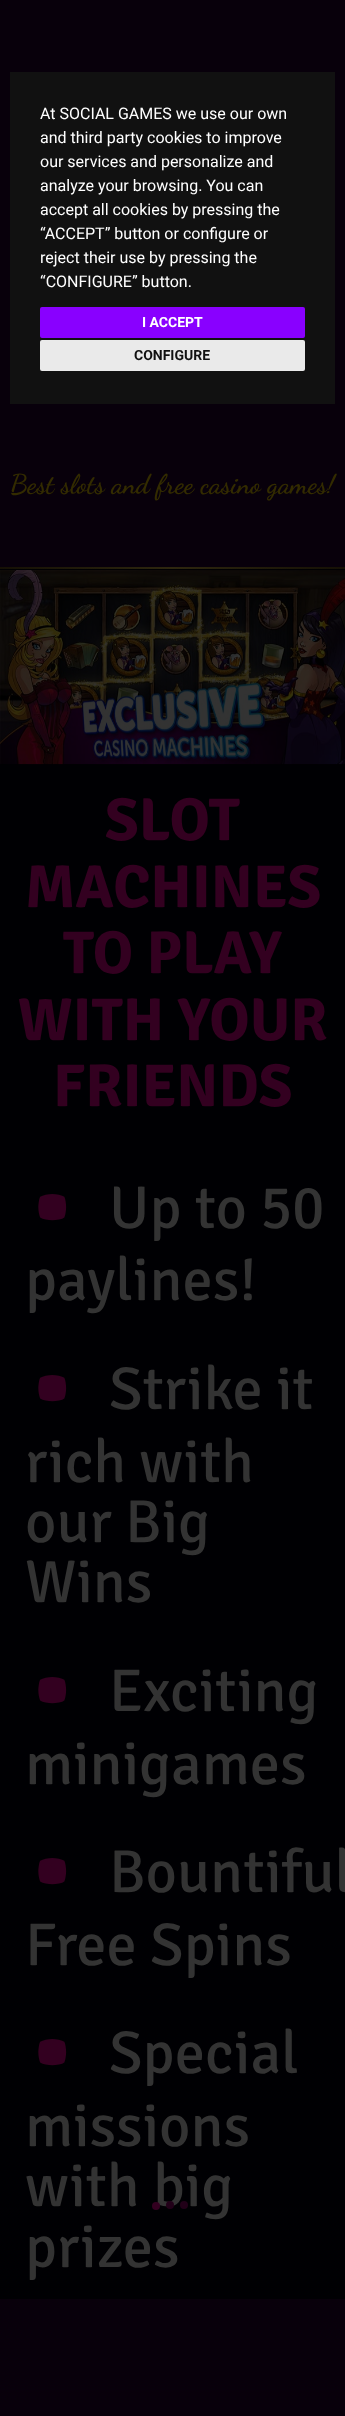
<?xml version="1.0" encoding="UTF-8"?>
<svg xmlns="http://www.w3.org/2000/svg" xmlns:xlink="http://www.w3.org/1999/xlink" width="345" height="2416">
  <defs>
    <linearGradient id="g1" gradientUnits="userSpaceOnUse" x1="345" y1="568" x2="0" y2="568"><stop offset="0" stop-color="#151005" /><stop offset="0.5" stop-color="#2e270f" /><stop offset="1" stop-color="#151005" /></linearGradient>
  </defs>
  <rect width="100%" height="100%" fill="#08000b" />
  <rect x="10" y="72" width="325" height="332" fill="#111111" />
  <rect x="40" y="307" width="265" height="31" rx="2" fill="#8900ff" />
  <rect x="40" y="340" width="265" height="31" rx="2" fill="#eaeaea" />
  <rect y="569" width="345" height="1730" fill="#000003" />
  <rect y="567" width="345" height="2" fill="url(#g1)" />
  <image x="0" y="570" width="345" height="195" xlink:href="image1.png" />
  <text x="40" y="119" style="font-family: Roboto; font-size: 16px; fill: #ffffff">At SOCIAL GAMES we use our own</text>
  <text x="40" y="143" style="font-family: Roboto; font-size: 16px; fill: #ffffff">and third party cookies to improve</text>
  <text x="40" y="167" style="font-family: Roboto; font-size: 16px; fill: #ffffff">our services and personalize and</text>
  <text x="40" y="191" style="font-family: Roboto; font-size: 16px; fill: #ffffff">analyze your browsing. You can</text>
  <text x="40" y="215" style="font-family: Roboto; font-size: 16px; fill: #ffffff">accept all cookies by pressing the</text>
  <text x="40" y="239" style="font-family: Roboto; font-size: 16px; fill: #ffffff">“ACCEPT” button or configure or</text>
  <text x="40" y="263" style="font-family: Roboto; font-size: 16px; fill: #ffffff">reject their use by pressing the</text>
  <text x="40" y="287" style="font-family: Roboto; font-size: 16px; fill: #ffffff">“CONFIGURE” button.</text>
  <text x="142" y="327" style="font-family: Roboto; font-size: 14px; font-weight: bold; fill: #ffffff">I ACCEPT</text>
  <text x="134" y="360" style="font-family: Roboto; font-size: 14px; font-weight: bold; fill: #111111">CONFIGURE</text>
  <text x="10" y="493" style="font-family: Dancing Script; font-size: 27px; font-weight: bold; fill: #332b00">Best slots and free casino games!</text>
  <text x="105" y="840" style="font-family: Signika; font-size: 60.5px; font-weight: bold; fill: #330020">SLOT</text>
  <text x="25" y="907" style="font-family: Signika; font-size: 60.5px; font-weight: bold; fill: #330020">MACHINES</text>
  <text x="63" y="973" style="font-family: Signika; font-size: 60.5px; font-weight: bold; fill: #330020">TO PLAY</text>
  <text x="18" y="1040" style="font-family: Signika; font-size: 60.5px; font-weight: bold; fill: #330020">WITH YOUR</text>
  <text x="53" y="1106" style="font-family: Signika; font-size: 60.5px; font-weight: bold; fill: #330020">FRIENDS</text>
  <text x="25" y="1240" style="font-family: Signika; font-size: 121px; fill: #330020">•</text>
  <text x="109" y="1228" style="font-family: Signika; font-size: 60.5px; fill: #333333">Up to 50</text>
  <text x="25" y="1300" style="font-family: Signika; font-size: 60.5px; fill: #333333">paylines!</text>
  <text x="25" y="1421" style="font-family: Signika; font-size: 121px; fill: #330020">•</text>
  <text x="109" y="1409" style="font-family: Signika; font-size: 60.5px; fill: #333333">Strike it</text>
  <text x="25" y="1482" style="font-family: Signika; font-size: 60.5px; fill: #333333">rich with</text>
  <text x="25" y="1542" style="font-family: Signika; font-size: 60.5px; fill: #333333">our Big</text>
  <text x="25" y="1602" style="font-family: Signika; font-size: 60.5px; fill: #333333">Wins</text>
  <text x="25" y="1723" style="font-family: Signika; font-size: 121px; fill: #330020">•</text>
  <text x="109" y="1711" style="font-family: Signika; font-size: 60.5px; fill: #333333">Exciting</text>
  <text x="25" y="1784" style="font-family: Signika; font-size: 60.5px; fill: #333333">minigames</text>
  <text x="25" y="1904" style="font-family: Signika; font-size: 121px; fill: #330020">•</text>
  <text x="109" y="1892" style="font-family: Signika; font-size: 60.5px; fill: #333333">Bountiful</text>
  <text x="25" y="1965" style="font-family: Signika; font-size: 60.5px; fill: #333333">Free Spins</text>
  <text x="25" y="2085" style="font-family: Signika; font-size: 121px; fill: #330020">•</text>
  <text x="109" y="2073" style="font-family: Signika; font-size: 60.5px; fill: #333333">Special</text>
  <text x="25" y="2146" style="font-family: Signika; font-size: 60.5px; fill: #333333">missions</text>
  <text x="25" y="2206" style="font-family: Signika; font-size: 60.5px; fill: #333333">with big</text>
  <text x="25" y="2267" style="font-family: Signika; font-size: 60.5px; fill: #333333">prizes</text>
  <circle cx="156" cy="2206" r="4" fill="#330020" />
  <circle cx="170" cy="2205" r="4" fill="#210018" />
  <circle cx="184" cy="2205" r="4" fill="#210018" />
</svg>
